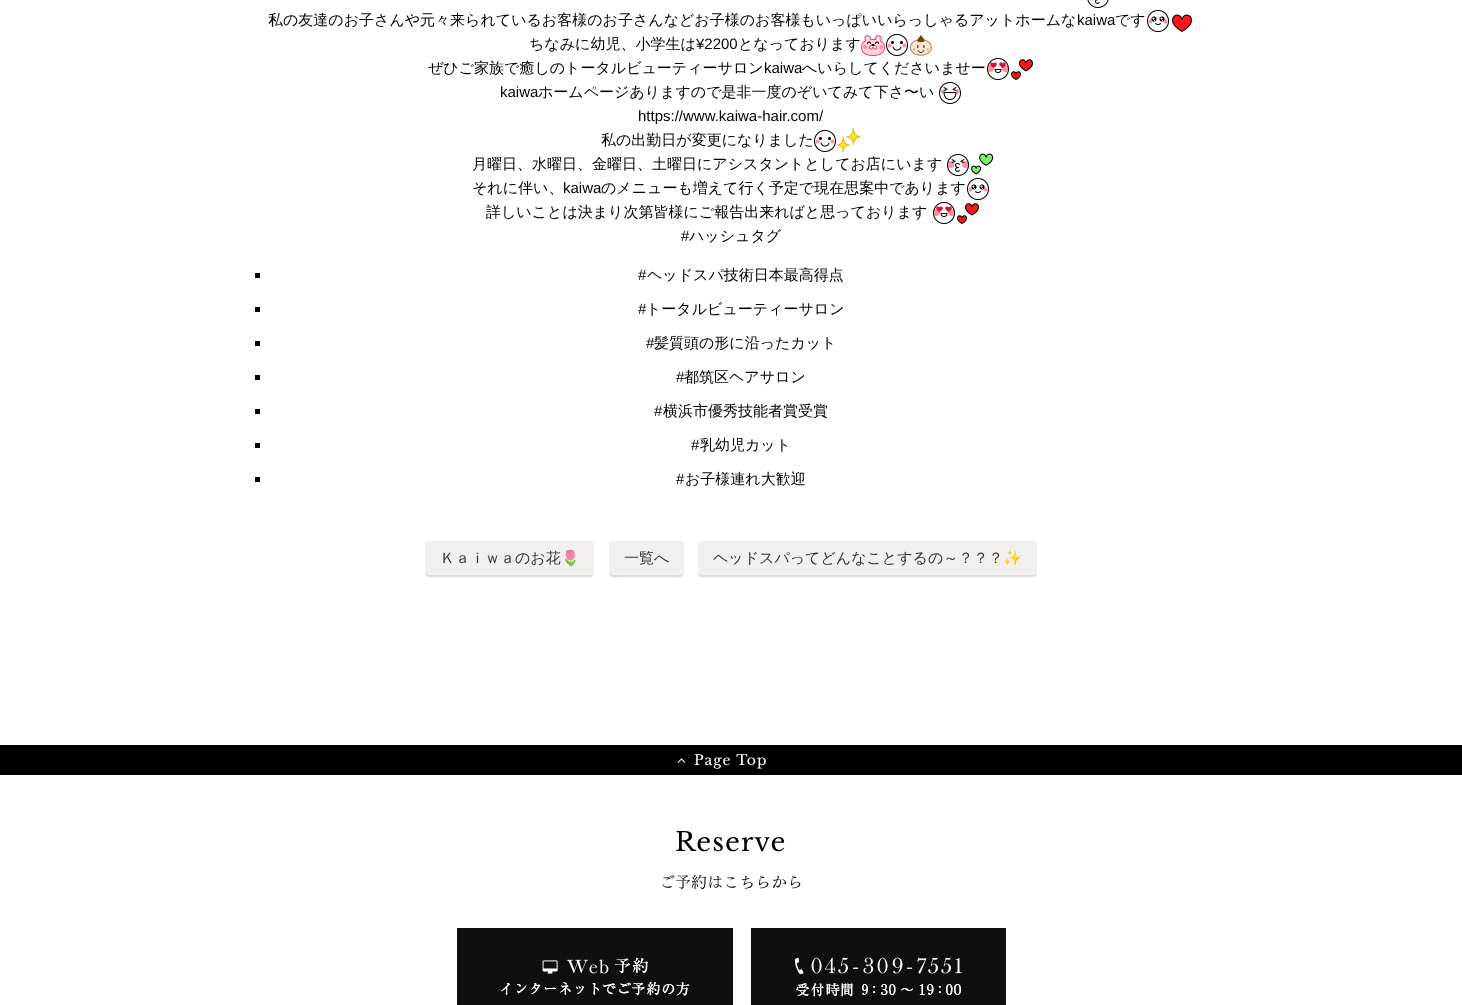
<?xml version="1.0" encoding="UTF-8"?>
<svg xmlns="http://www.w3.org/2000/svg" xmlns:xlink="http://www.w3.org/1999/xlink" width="1462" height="1005">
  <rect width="100%" height="100%" fill="#ffffff" />
  <image x="1087" y="0" width="22" height="8" xlink:href="image1.png" />
  <image x="1147" y="10" width="22" height="22" xlink:href="image2.png" />
  <image x="1172" y="14" width="20" height="18" xlink:href="image3.png" />
  <image x="861" y="35" width="24" height="21" xlink:href="image4.png" />
  <image x="886" y="34" width="22" height="22" xlink:href="image5.png" />
  <image x="909" y="35" width="23" height="21" xlink:href="image6.png" />
  <image x="987" y="58" width="22" height="22" xlink:href="image7.png" />
  <image x="1011" y="59" width="22" height="21" xlink:href="image8.png" />
  <image x="939" y="82" width="22" height="22" xlink:href="image9.png" />
  <image x="814" y="130" width="22" height="22" xlink:href="image5.png" />
  <image x="837" y="128" width="24" height="24" xlink:href="image10.png" />
  <image x="947" y="154" width="22" height="22" xlink:href="image11.png" />
  <image x="971" y="153" width="23" height="22" xlink:href="image12.png" />
  <image x="967" y="178" width="22" height="22" xlink:href="image2.png" />
  <image x="933" y="202" width="22" height="22" xlink:href="image7.png" />
  <image x="957" y="203" width="22" height="21" xlink:href="image8.png" />
  <rect x="255" y="273" width="5" height="5" fill="#000000" />
  <rect x="255" y="307" width="5" height="5" fill="#000000" />
  <rect x="255" y="341" width="5" height="5" fill="#000000" />
  <rect x="255" y="375" width="5" height="5" fill="#000000" />
  <rect x="255" y="409" width="5" height="5" fill="#000000" />
  <rect x="255" y="443" width="5" height="5" fill="#000000" />
  <rect x="255" y="477" width="5" height="5" fill="#000000" />
  <path d="M 425 571 v 2 c 0 2 2 4 4 4 h 161 c 2 0 4 -2 4 -4 v -2 c 0 2 -2 4 -4 4 h -161 c -2 0 -4 -2 -4 -4 z" fill="#dddddd" />
  <rect x="425" y="541" width="169" height="34" rx="4" fill="#f1f0ee" />
  <path d="M 609 571 c 0 9 7 6 15 6 h 45 c 8 0 15 3 15 -6 c 0 2 -2 4 -4 4 h -67 c -2 0 -4 -2 -4 -4 z" fill="#dddddd" />
  <rect x="609" y="541" width="75" height="34" rx="4" fill="#f1f0ee" />
  <path d="M 698 571 c 0 3 0 6 4 6 h 331 c 4 0 4 -3 4 -6 c 0 2 -2 4 -4 4 h -331 c -2 0 -4 -2 -4 -4 z" fill="#dddddd" />
  <rect x="698" y="541" width="339" height="34" rx="4" fill="#f1f0ee" />
  <rect y="745" width="1462" height="30" fill="#000000" />
  <image x="677" y="758" width="9" height="5" xlink:href="image13.png" />
  <image x="457" y="928" width="276" height="77" xlink:href="image14.png" />
  <image x="751" y="928" width="255" height="77" xlink:href="image15.png" />
  <text x="268" y="25" style="font-family: WenQuanYi Zen Hei; font-size: 15px; font-weight: 500; fill: #000000">私の友達のお子さんや元々来られているお客様のお子さんなどお子様のお客様もいっぱいいらっしゃるアットホームな</text>
  <text x="1077" y="25" style="font-family: Liberation Sans; font-size: 15px; fill: #000000">kaiwa</text>
  <text x="1115" y="25" style="font-family: WenQuanYi Zen Hei; font-size: 15px; font-weight: 500; fill: #000000">です</text>
  <text x="529" y="49" style="font-family: WenQuanYi Zen Hei; font-size: 15px; font-weight: 500; fill: #000000">ちなみに幼児、小学生は</text>
  <text x="696" y="49" style="font-family: Liberation Sans; font-size: 15px; fill: #000000">¥2200</text>
  <text x="738" y="49" style="font-family: WenQuanYi Zen Hei; font-size: 15px; font-weight: 500; fill: #000000">となっております</text>
  <text x="428" y="73" style="font-family: WenQuanYi Zen Hei; font-size: 15px; font-weight: 500; fill: #000000">ぜひご家族で癒しのトータルビューティーサロン</text>
  <text x="764" y="73" style="font-family: Liberation Sans; font-size: 15px; fill: #000000">kaiwa</text>
  <text x="802" y="73" style="font-family: WenQuanYi Zen Hei; font-size: 15px; font-weight: 500; fill: #000000">へいらしてくださいませー</text>
  <text x="500" y="97" style="font-family: Liberation Sans; font-size: 15px; fill: #000000">kaiwa</text>
  <text x="538" y="97" style="font-family: WenQuanYi Zen Hei; font-size: 15px; font-weight: 500; fill: #000000">ホームページありますので是非一度のぞいてみて下さ〜い</text>
  <text x="638" y="121" style="font-family: Liberation Sans; font-size: 15px; fill: #000000">https://www.kaiwa-hair.com/</text>
  <text x="601" y="145" style="font-family: WenQuanYi Zen Hei; font-size: 15px; font-weight: 500; fill: #000000">私の出勤日が変更になりました</text>
  <text x="472" y="169" style="font-family: WenQuanYi Zen Hei; font-size: 15px; font-weight: 500; fill: #000000">月曜日、水曜日、金曜日、土曜日にアシスタントとしてお店にいます</text>
  <text x="472" y="193" style="font-family: WenQuanYi Zen Hei; font-size: 15px; font-weight: 500; fill: #000000">それに伴い、</text>
  <text x="563" y="193" style="font-family: Liberation Sans; font-size: 15px; fill: #000000">kaiwa</text>
  <text x="601" y="193" style="font-family: WenQuanYi Zen Hei; font-size: 15px; font-weight: 500; fill: #000000">のメニューも増えて行く予定で現在思案中であります</text>
  <text x="486" y="217" style="font-family: WenQuanYi Zen Hei; font-size: 15px; font-weight: 500; fill: #000000">詳しいことは決まり次第皆様にご報告出来ればと思っております</text>
  <text x="681" y="241" style="font-family: Liberation Sans; font-size: 15px; fill: #000000">#</text>
  <text x="689" y="241" style="font-family: WenQuanYi Zen Hei; font-size: 15px; font-weight: 500; fill: #000000">ハッシュタグ</text>
  <text x="638" y="280" style="font-family: Liberation Sans; font-size: 15px; fill: #000000">#</text>
  <text x="647" y="280" style="font-family: WenQuanYi Zen Hei; font-size: 15px; font-weight: 500; fill: #000000">ヘッドスパ技術日本最高得点</text>
  <text x="638" y="314" style="font-family: Liberation Sans; font-size: 15px; fill: #000000">#</text>
  <text x="646" y="314" style="font-family: WenQuanYi Zen Hei; font-size: 15px; font-weight: 500; fill: #000000">トータルビューティーサロン</text>
  <text x="646" y="348" style="font-family: Liberation Sans; font-size: 15px; fill: #000000">#</text>
  <text x="654" y="348" style="font-family: WenQuanYi Zen Hei; font-size: 15px; font-weight: 500; fill: #000000">髪質頭の形に沿ったカット</text>
  <text x="676" y="382" style="font-family: Liberation Sans; font-size: 15px; fill: #000000">#</text>
  <text x="684" y="382" style="font-family: WenQuanYi Zen Hei; font-size: 15px; font-weight: 500; fill: #000000">都筑区ヘアサロン</text>
  <text x="654" y="416" style="font-family: Liberation Sans; font-size: 15px; fill: #000000">#</text>
  <text x="663" y="416" style="font-family: WenQuanYi Zen Hei; font-size: 15px; font-weight: 500; fill: #000000">横浜市優秀技能者賞受賞</text>
  <text x="691" y="450" style="font-family: Liberation Sans; font-size: 15px; fill: #000000">#</text>
  <text x="700" y="450" style="font-family: WenQuanYi Zen Hei; font-size: 15px; font-weight: 500; fill: #000000">乳幼児カット</text>
  <text x="676" y="484" style="font-family: Liberation Sans; font-size: 15px; fill: #000000">#</text>
  <text x="685" y="484" style="font-family: WenQuanYi Zen Hei; font-size: 15px; font-weight: 500; fill: #000000">お子様連れ大歓迎</text>
  <text x="440" y="563" style="font-family: WenQuanYi Zen Hei; font-size: 15px; font-weight: 500; fill: #333333">Ｋａｉｗａのお花</text>
  <text x="561" y="563" style="font-family: Noto Color Emoji; font-size: 15px; fill: #333333">🌷</text>
  <text x="624" y="563" style="font-family: WenQuanYi Zen Hei; font-size: 15px; font-weight: 500; fill: #333333">一覧へ</text>
  <text x="713" y="563" style="font-family: WenQuanYi Zen Hei; font-size: 15px; font-weight: 500; fill: #333333">ヘッドスパってどんなことするの～？？？</text>
  <text x="1003" y="563" style="font-family: Noto Color Emoji; font-size: 15px; fill: #333333">✨</text>
  <text x="694" y="765" style="font-family: Libre Baskerville; font-size: 14px; letter-spacing: 1px; fill: #ffffff">Page Top</text>
  <text x="675" y="851" style="font-family: Libre Baskerville; font-size: 26px; letter-spacing: 1px; fill: #000000">Reserve</text>
  <text x="659" y="888" style="font-family: 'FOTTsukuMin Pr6'; font-size: 16px; fill: #000000">ご予約はこちらから</text>
</svg>
